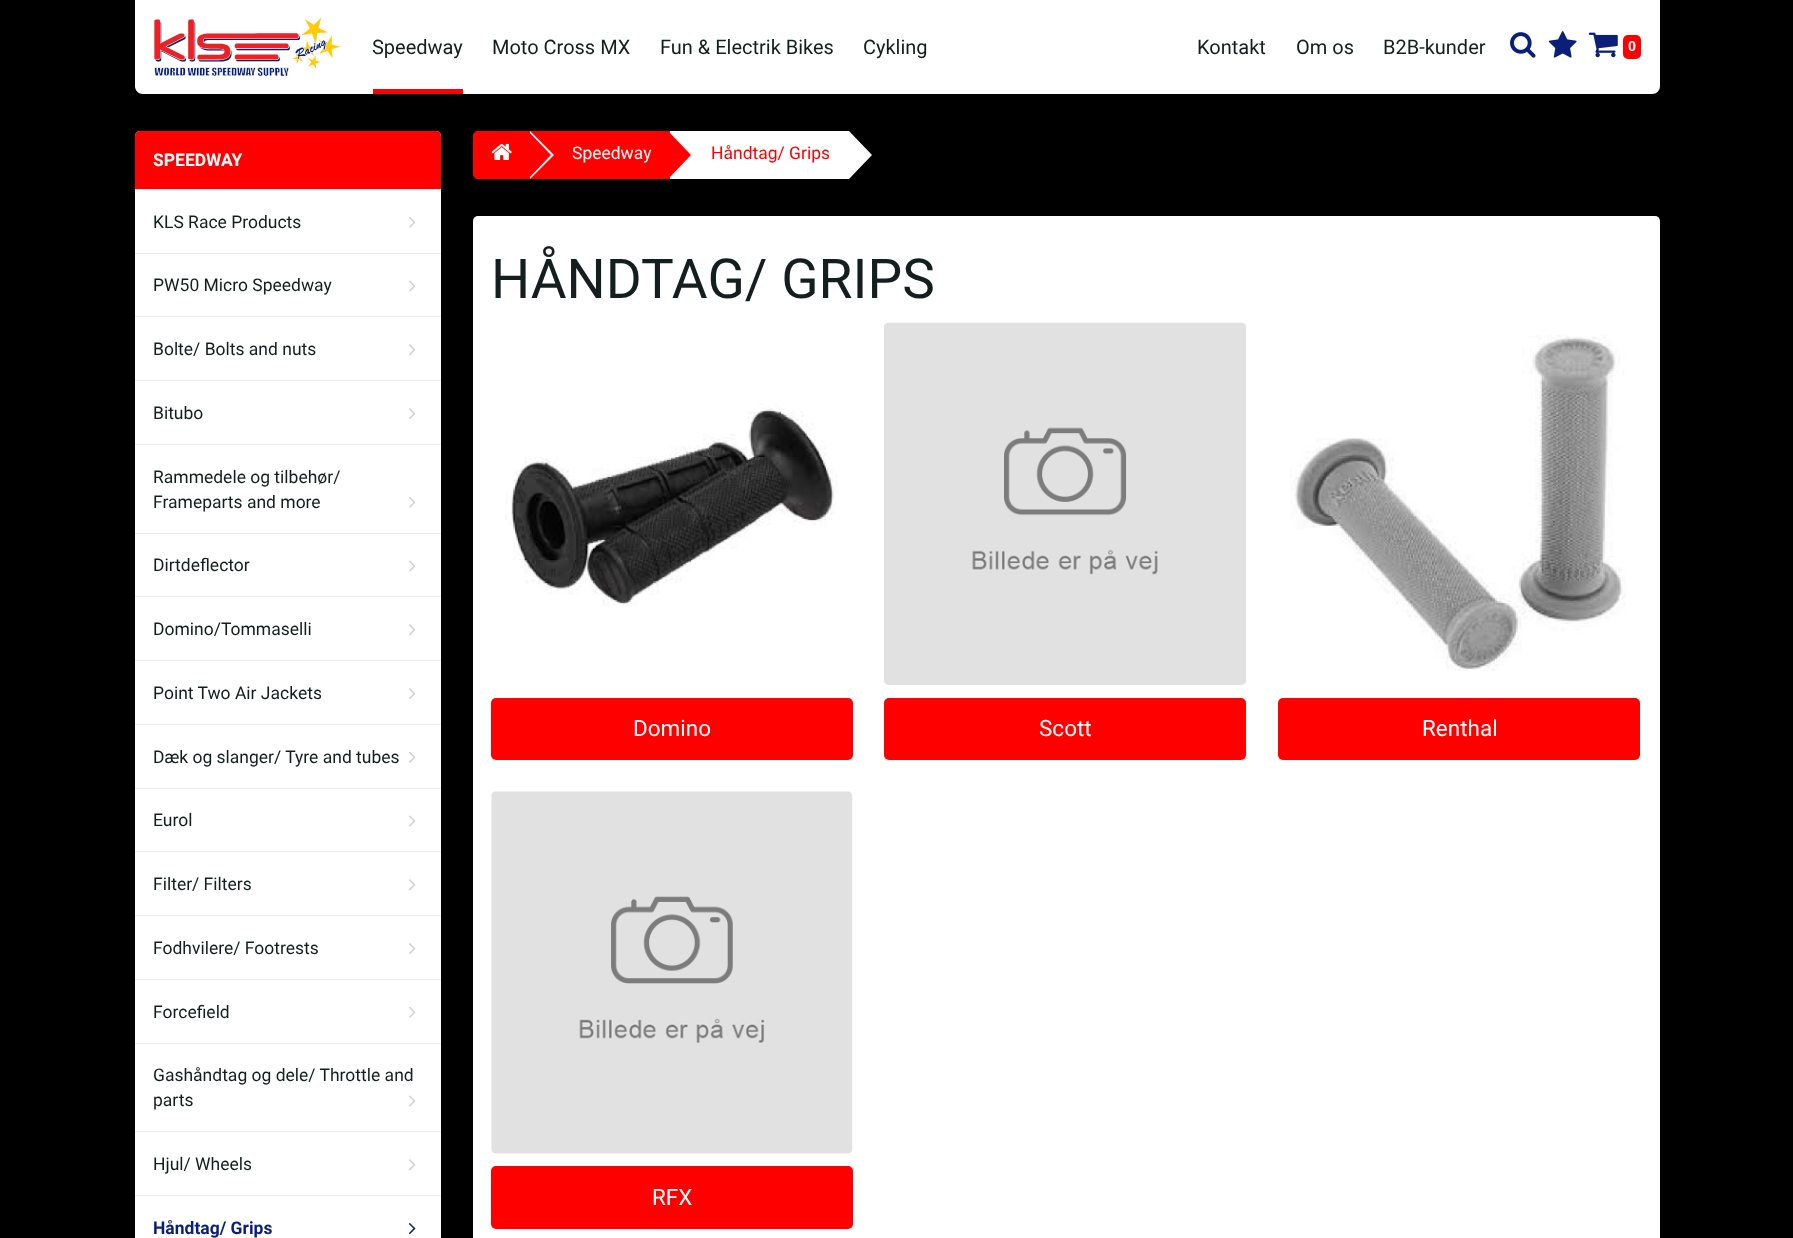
<?xml version="1.0" encoding="UTF-8"?>
<svg xmlns="http://www.w3.org/2000/svg" xmlns:xlink="http://www.w3.org/1999/xlink" width="1793" height="1238">
  <rect width="100%" height="100%" fill="#000000" />
  <path d="M 135 0 h 1525 v 86 c 0 4.5 -3.5 8 -8 8 h -1509 c -4.5 0 -8 -3.5 -8 -8 z" fill="#ffffff" />
  <image x="154" y="18" width="187" height="58" xlink:href="image1.png" />
  <rect x="373" y="89" width="90" height="5" fill="#ff0000" />
  <image x="1510" y="32" width="26" height="26" xlink:href="image2.png" />
  <image x="1548" y="31" width="29" height="27" xlink:href="image3.png" />
  <image x="1588" y="32" width="30" height="26" xlink:href="image4.png" />
  <rect x="1623" y="35" width="18" height="24" rx="5" fill="#ff0000" />
  <rect x="135" y="131" width="306" height="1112" rx="5" fill="#ffffff" />
  <rect x="135" y="189" width="306" height="1" fill="#ebebeb" />
  <path d="M 140 131 h 296 c 3 0 5 2 5 5 v 53 h -306 v -53 c 0 -3 2 -5 5 -5 z" fill="#ff0000" />
  <rect x="135" y="253" width="306" height="1" fill="#ebebeb" />
  <image x="409" y="216" width="7" height="12" xlink:href="image5.png" />
  <rect x="135" y="316" width="306" height="1" fill="#ebebeb" />
  <image x="409" y="280" width="7" height="12" xlink:href="image6.png" />
  <rect x="135" y="380" width="306" height="1" fill="#ebebeb" />
  <image x="409" y="344" width="7" height="12" xlink:href="image7.png" />
  <rect x="135" y="444" width="306" height="1" fill="#ebebeb" />
  <image x="409" y="408" width="7" height="11" xlink:href="image8.png" />
  <rect x="135" y="533" width="306" height="1" fill="#ebebeb" />
  <image x="409" y="496" width="7" height="12" xlink:href="image5.png" />
  <rect x="135" y="596" width="306" height="1" fill="#ebebeb" />
  <image x="409" y="560" width="7" height="12" xlink:href="image6.png" />
  <rect x="135" y="660" width="306" height="1" fill="#ebebeb" />
  <image x="409" y="624" width="7" height="12" xlink:href="image7.png" />
  <rect x="135" y="724" width="306" height="1" fill="#ebebeb" />
  <image x="409" y="688" width="7" height="11" xlink:href="image8.png" />
  <rect x="135" y="788" width="306" height="1" fill="#ebebeb" />
  <image x="409" y="751" width="7" height="12" xlink:href="image5.png" />
  <rect x="135" y="851" width="306" height="1" fill="#ebebeb" />
  <image x="409" y="815" width="7" height="12" xlink:href="image6.png" />
  <rect x="135" y="915" width="306" height="1" fill="#ebebeb" />
  <image x="409" y="879" width="7" height="12" xlink:href="image7.png" />
  <rect x="135" y="979" width="306" height="1" fill="#ebebeb" />
  <image x="409" y="943" width="7" height="11" xlink:href="image8.png" />
  <rect x="135" y="1043" width="306" height="1" fill="#ebebeb" />
  <image x="409" y="1006" width="7" height="12" xlink:href="image5.png" />
  <rect x="135" y="1131" width="306" height="1" fill="#ebebeb" />
  <image x="409" y="1095" width="7" height="12" xlink:href="image6.png" />
  <rect x="135" y="1195" width="306" height="1" fill="#ebebeb" />
  <image x="409" y="1159" width="7" height="12" xlink:href="image7.png" />
  <image x="408" y="1223" width="8" height="12" xlink:href="image9.png" />
  <path d="M 478 131 h 52 v 48 h -52 c -3 0 -5 -2 -5 -5 v -38 c 0 -3 2 -5 5 -5 z" fill="#ff0000" />
  <rect x="530" y="131" width="140" height="48" fill="#ff0000" />
  <path d="M 530 179 v -48 l 24 24 z" fill="#ffffff" />
  <path d="M 528 179 v -48 l 23 24 z" fill="#ff0000" />
  <image x="491" y="143" width="21" height="17" xlink:href="image10.png" />
  <rect x="670" y="131" width="179" height="48" fill="#ffffff" />
  <path d="M 668 179 v -48 l 23 24 z" fill="#ff0000" />
  <path d="M 849 179 v -48 l 23 24 z" fill="#ffffff" />
  <rect x="473" y="216" width="1187" height="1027" rx="5" fill="#ffffff" />
  <image x="505" y="403" width="332" height="203" xlink:href="image11.png" />
  <rect x="491" y="698" width="362" height="62" rx="5" fill="#ff0000" />
  <image x="884" y="322" width="362" height="363" xlink:href="image12.png" />
  <rect x="884" y="698" width="362" height="62" rx="5" fill="#ff0000" />
  <image x="1290" y="335" width="336" height="336" xlink:href="image13.png" />
  <rect x="1278" y="698" width="362" height="62" rx="5" fill="#ff0000" />
  <image x="491" y="791" width="362" height="363" xlink:href="image14.png" />
  <rect x="491" y="1166" width="362" height="63" rx="5" fill="#ff0000" />
  <text x="372" y="54" style="font-family: Roboto; font-size: 20px; fill: #141e1e">Speedway</text>
  <text x="492" y="54" style="font-family: Roboto; font-size: 20px; fill: #141e1e">Moto Cross MX</text>
  <text x="660" y="54" style="font-family: Roboto; font-size: 20px; fill: #141e1e">Fun &amp; Electrik Bikes</text>
  <text x="863" y="54" style="font-family: Roboto; font-size: 20px; fill: #141e1e">Cykling</text>
  <text x="1197" y="54" style="font-family: Roboto; font-size: 20px; fill: #141e1e">Kontakt</text>
  <text x="1296" y="54" style="font-family: Roboto; font-size: 20px; fill: #141e1e">Om os</text>
  <text x="1383" y="54" style="font-family: Roboto; font-size: 20px; fill: #141e1e">B2B-kunder</text>
  <text x="1628" y="51" style="font-family: Roboto; font-size: 14px; font-weight: bold; fill: #ffffff">0</text>
  <text x="153" y="166" style="font-family: Roboto; font-size: 17.5px; font-weight: bold; fill: #ffffff">SPEEDWAY</text>
  <text x="153" y="228" style="font-family: Roboto; font-size: 17.5px; fill: #141e1e">KLS Race Products</text>
  <text x="153" y="291" style="font-family: Roboto; font-size: 17.5px; fill: #141e1e">PW50 Micro Speedway</text>
  <text x="153" y="355" style="font-family: Roboto; font-size: 17.5px; fill: #141e1e">Bolte/ Bolts and nuts</text>
  <text x="153" y="419" style="font-family: Roboto; font-size: 17.5px; fill: #141e1e">Bitubo</text>
  <text x="153" y="483" style="font-family: Roboto; font-size: 17.5px; fill: #141e1e">Rammedele og tilbehør/</text>
  <text x="153" y="508" style="font-family: Roboto; font-size: 17.5px; fill: #141e1e">Frameparts and more</text>
  <text x="153" y="571" style="font-family: Roboto; font-size: 17.5px; fill: #141e1e">Dirtdeflector</text>
  <text x="153" y="635" style="font-family: Roboto; font-size: 17.5px; fill: #141e1e">Domino/Tommaselli</text>
  <text x="153" y="699" style="font-family: Roboto; font-size: 17.5px; fill: #141e1e">Point Two Air Jackets</text>
  <text x="153" y="763" style="font-family: Roboto; font-size: 17.5px; fill: #141e1e">Dæk og slanger/ Tyre and tubes</text>
  <text x="153" y="826" style="font-family: Roboto; font-size: 17.5px; fill: #141e1e">Eurol</text>
  <text x="153" y="890" style="font-family: Roboto; font-size: 17.5px; fill: #141e1e">Filter/ Filters</text>
  <text x="153" y="954" style="font-family: Roboto; font-size: 17.5px; fill: #141e1e">Fodhvilere/ Footrests</text>
  <text x="153" y="1018" style="font-family: Roboto; font-size: 17.5px; fill: #141e1e">Forcefield</text>
  <text x="153" y="1081" style="font-family: Roboto; font-size: 17.5px; fill: #141e1e">Gashåndtag og dele/ Throttle and</text>
  <text x="153" y="1106" style="font-family: Roboto; font-size: 17.5px; fill: #141e1e">parts</text>
  <text x="153" y="1170" style="font-family: Roboto; font-size: 17.5px; fill: #141e1e">Hjul/ Wheels</text>
  <text x="153" y="1234" style="font-family: Roboto; font-size: 17.5px; font-weight: bold; fill: #0a1f79">Håndtag/ Grips</text>
  <text x="572" y="159" style="font-family: Roboto; font-size: 17.5px; fill: #ffffff">Speedway</text>
  <text x="711" y="159" style="font-family: Roboto; font-size: 17.5px; fill: #ff0000">Håndtag/ Grips</text>
  <text x="491" y="298" style="font-family: Roboto; font-size: 55px; fill: #141e1e">HÅNDTAG/ GRIPS</text>
  <text x="633" y="736" style="font-family: Roboto; font-size: 22.5px; fill: #ffffff">Domino</text>
  <text x="1039" y="736" style="font-family: Roboto; font-size: 22.5px; fill: #ffffff">Scott</text>
  <text x="1422" y="736" style="font-family: Roboto; font-size: 22.5px; fill: #ffffff">Renthal</text>
  <text x="652" y="1205" style="font-family: Roboto; font-size: 22.5px; fill: #ffffff">RFX</text>
</svg>
